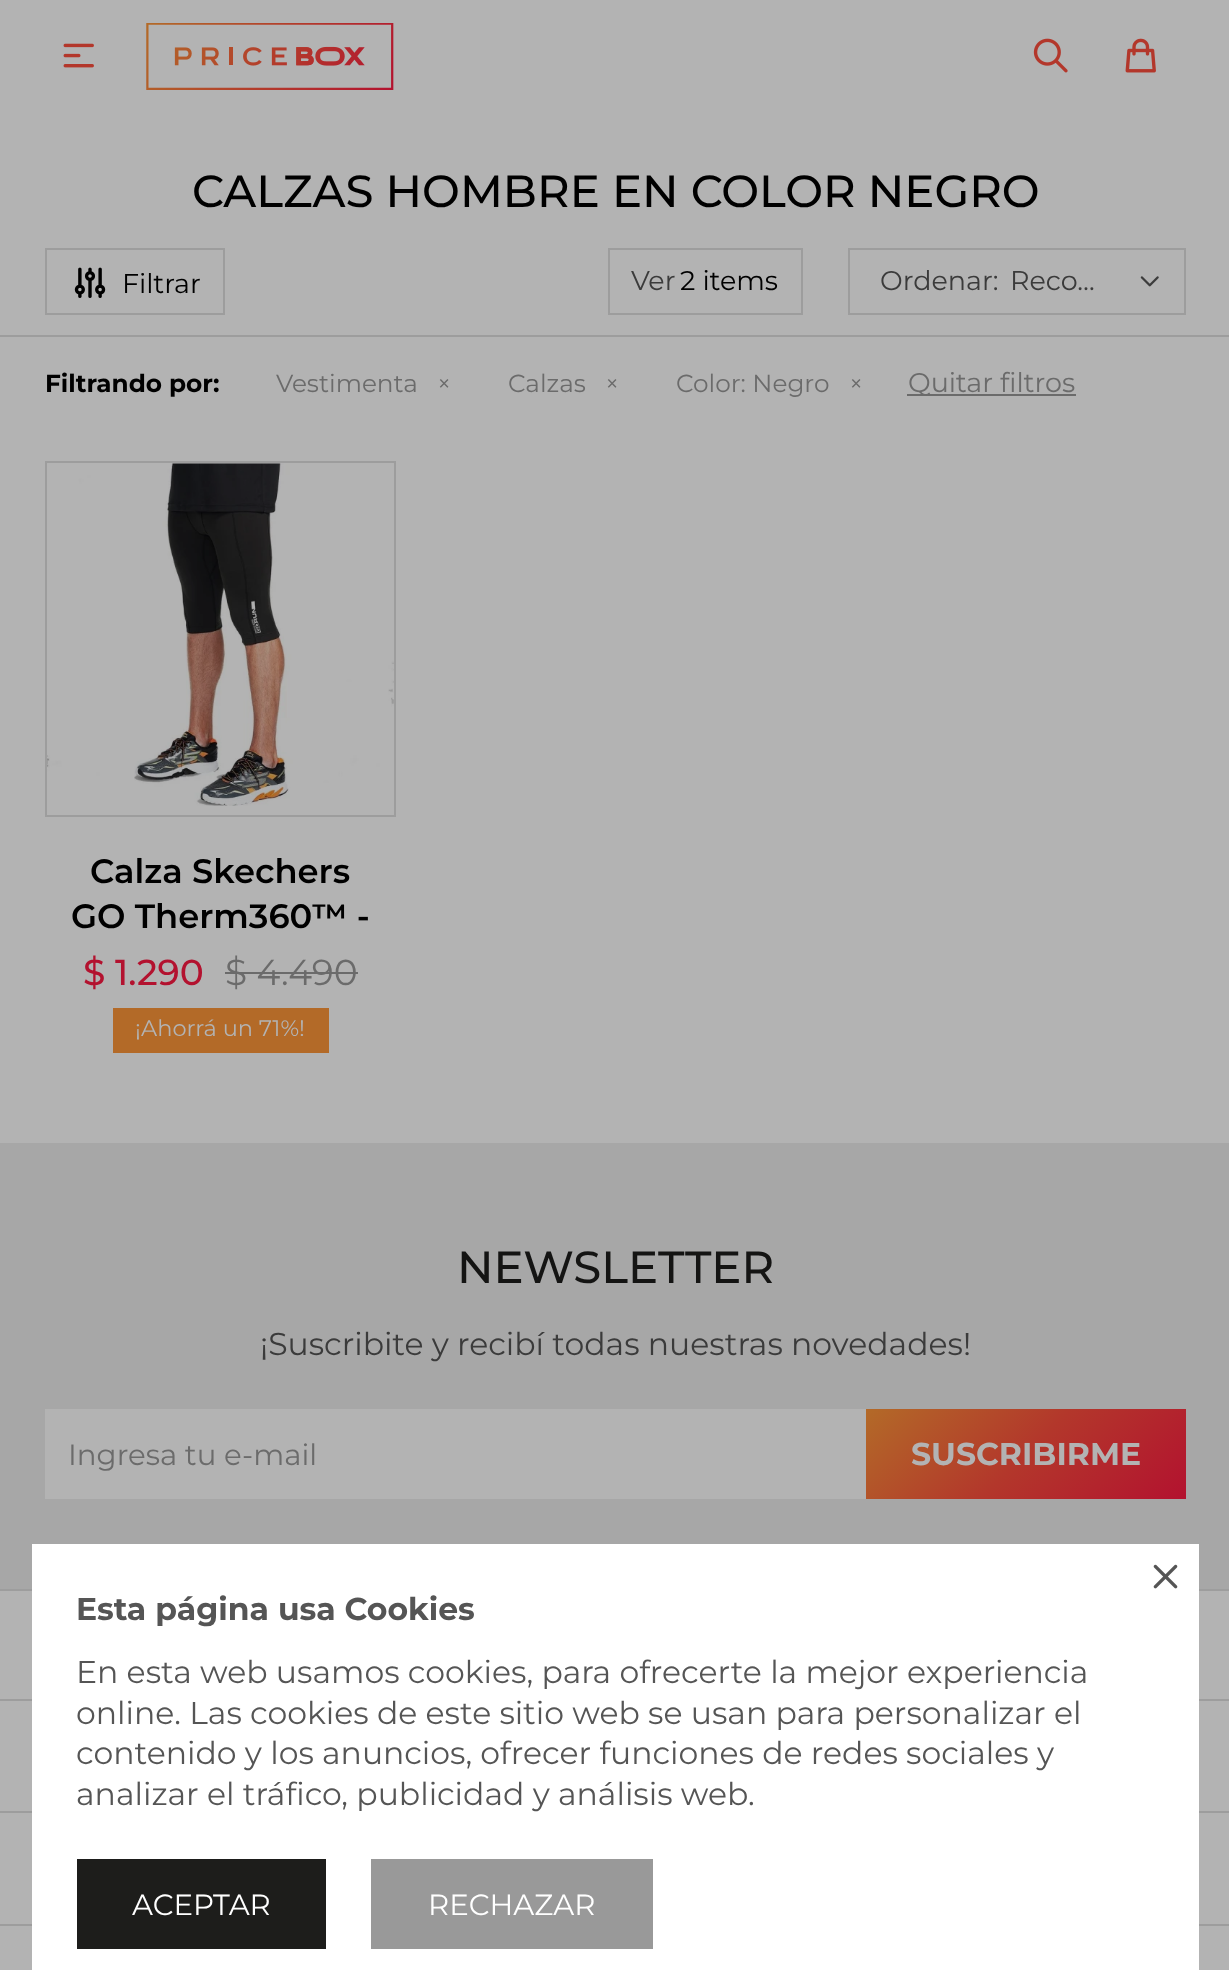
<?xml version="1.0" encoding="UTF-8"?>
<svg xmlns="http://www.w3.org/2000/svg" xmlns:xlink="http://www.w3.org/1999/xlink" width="1229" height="1970">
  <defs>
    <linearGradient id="g1" gradientUnits="userSpaceOnUse" x1="1128" y1="1556" x2="924" y2="1351"><stop offset="0" stop-color="#b3122f" /><stop offset="0.5" stop-color="#b3372b" /><stop offset="1" stop-color="#b36a28" /></linearGradient>
  </defs>
  <rect width="100%" height="100%" fill="#b3b3b3" />
  <image x="63" y="43" width="31" height="25" xlink:href="image1.png" />
  <image x="146" y="23" width="248" height="67" xlink:href="image2.png" />
  <image x="1033" y="38" width="35" height="35" xlink:href="image3.png" />
  <image x="1125" y="38" width="31" height="35" xlink:href="image4.png" />
  <rect x="46" y="249" width="178" height="65" fill="none" stroke="#9d9d9d" stroke-width="2" />
  <image x="74" y="267" width="32" height="31" xlink:href="image5.png" />
  <rect x="609" y="249" width="193" height="65" fill="none" stroke="#9d9d9d" stroke-width="2" />
  <image x="1140" y="276" width="19" height="11" xlink:href="image6.png" />
  <rect x="849" y="249" width="336" height="65" fill="none" stroke="#9d9d9d" stroke-width="2" />
  <rect y="335" width="1229" height="2" fill="#9d9d9d" />
  <rect x="907" y="394" width="169" height="2" fill="#6b6b6b" />
  <rect x="46" y="462" width="349" height="354" fill="none" stroke="#9d9d9d" stroke-width="2" />
  <image x="47" y="463" width="347" height="343" xlink:href="image7.png" />
  <rect x="225" y="972" width="133" height="2" fill="#6b6b6b" />
  <rect x="113" y="1008" width="216" height="45" fill="#b36a28" />
  <rect y="1143" width="1229" height="446" fill="#a7a7a7" />
  <rect x="45" y="1409" width="821" height="90" fill="#b3b3b3" />
  <rect x="866" y="1409" width="320" height="90" fill="url(#g1)" />
  <rect y="1589" width="1229" height="2" fill="#9d9d9d" />
  <rect y="1699" width="1229" height="2" fill="#9d9d9d" />
  <rect y="1811" width="1229" height="2" fill="#9d9d9d" />
  <rect y="1924" width="1229" height="2" fill="#9d9d9d" />
  <rect x="32" y="1544" width="1167" height="426" fill="#ffffff" />
  <image x="1153" y="1564" width="25" height="25" xlink:href="image8.png" />
  <rect x="77" y="1859" width="249" height="90" fill="#1d1d1b" />
  <rect x="371" y="1859" width="282" height="90" fill="#999999" />
  <text x="192" y="207" style="font-family: Montserrat; font-size: 45px; font-weight: 500; fill: #000000">CALZAS HOMBRE EN COLOR NEGRO</text>
  <text x="122" y="293" style="font-family: Montserrat; font-size: 27px; fill: #000000">Filtrar</text>
  <text x="631" y="290" style="font-family: Montserrat; font-size: 27px; fill: #3b3b3b">Ver</text>
  <text x="680" y="290" style="font-family: Montserrat; font-size: 27px; fill: #000000">2 items</text>
  <text x="880" y="290" style="font-family: Montserrat; font-size: 27px; fill: #3b3b3b">Ordenar:</text>
  <text x="1010" y="290" style="font-family: Montserrat; font-size: 27px; fill: #3b3b3b">Reco…</text>
  <text x="45" y="392" style="font-family: Montserrat; font-size: 24.75px; font-weight: bold; fill: #000000">Filtrando por:</text>
  <text x="276" y="392" style="font-family: Montserrat; font-size: 24.75px; fill: #6b6b6b">Vestimenta</text>
  <text x="437" y="392" style="font-family: Montserrat; font-size: 24.75px; fill: #6b6b6b">×</text>
  <text x="508" y="392" style="font-family: Montserrat; font-size: 24.75px; fill: #6b6b6b">Calzas</text>
  <text x="605" y="392" style="font-family: Montserrat; font-size: 24.75px; fill: #6b6b6b">×</text>
  <text x="676" y="392" style="font-family: Montserrat; font-size: 24.75px; fill: #6b6b6b">Color: Negro</text>
  <text x="849" y="392" style="font-family: Montserrat; font-size: 24.75px; fill: #6b6b6b">×</text>
  <text x="908" y="392" style="font-family: Montserrat; font-size: 27px; fill: #6b6b6b">Quitar filtros</text>
  <text x="90" y="883" style="font-family: Montserrat; font-size: 33.75px; font-weight: 600; fill: #000000">Calza Skechers</text>
  <text x="71" y="928" style="font-family: Montserrat; font-size: 33.75px; font-weight: 600; fill: #000000">GO Therm360™ -</text>
  <text x="83" y="985" style="font-family: Montserrat; font-size: 36px; font-weight: 500; fill: #b3122f">$ 1.290</text>
  <text x="225" y="985" style="font-family: Montserrat; font-size: 36px; fill: #6b6b6b">$ 4.490</text>
  <text x="135" y="1036" style="font-family: Montserrat; font-size: 22.5px; fill: #b3b3b3">¡Ahorrá un 71%!</text>
  <text x="457" y="1283" style="font-family: Montserrat; font-size: 45px; font-weight: 500; fill: #141413">NEWSLETTER</text>
  <text x="260" y="1355" style="font-family: Montserrat; font-size: 31.5px; fill: #3b3b3b">¡Suscribite y recibí todas nuestras novedades!</text>
  <text x="68" y="1465" style="font-family: Montserrat; font-size: 29.25px; fill: #6b6b6b">Ingresa tu e-mail</text>
  <text x="911" y="1465" style="font-family: Montserrat; font-size: 31.5px; font-weight: bold; fill: #b3b3b3">SUSCRIBIRME</text>
  <text x="76" y="1620" style="font-family: Montserrat; font-size: 31.5px; font-weight: bold; fill: #555555">Esta página usa Cookies</text>
  <text x="76" y="1683" style="font-family: Montserrat; font-size: 31.5px; fill: #555555">En esta web usamos cookies, para ofrecerte la mejor experiencia</text>
  <text x="76" y="1724" style="font-family: Montserrat; font-size: 31.5px; fill: #555555">online. Las cookies de este sitio web se usan para personalizar el</text>
  <text x="76" y="1764" style="font-family: Montserrat; font-size: 31.5px; fill: #555555">contenido y los anuncios, ofrecer funciones de redes sociales y</text>
  <text x="76" y="1805" style="font-family: Montserrat; font-size: 31.5px; fill: #555555">analizar el tráfico, publicidad y análisis web.</text>
  <text x="132" y="1915" style="font-family: Montserrat; font-size: 29.25px; fill: #ffffff">ACEPTAR</text>
  <text x="428" y="1915" style="font-family: Montserrat; font-size: 29.25px; fill: #ffffff">RECHAZAR</text>
</svg>
